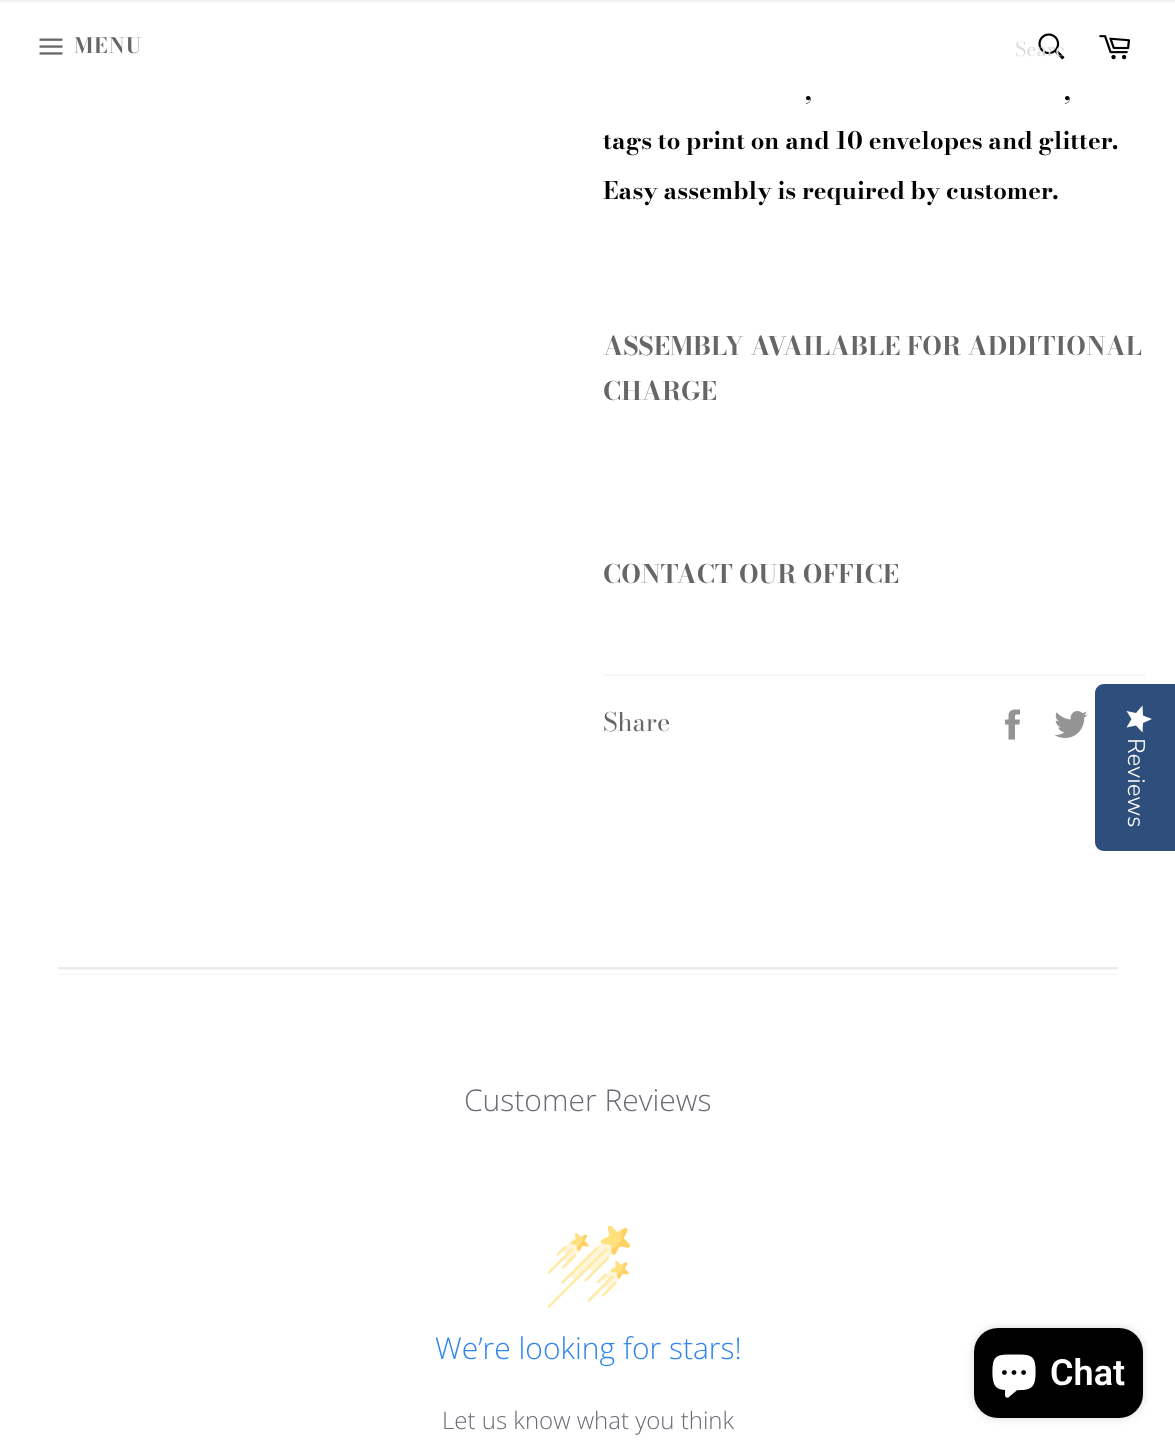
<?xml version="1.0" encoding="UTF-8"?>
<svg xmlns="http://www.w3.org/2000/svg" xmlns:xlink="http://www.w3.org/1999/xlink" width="1175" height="1449">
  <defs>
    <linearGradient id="g1" gradientUnits="userSpaceOnUse" x1="1152" y1="706" x2="1152" y2="733"><stop offset="1" stop-color="#ffffff" /><stop offset="1" stop-color="#eaeaea" /></linearGradient>
    <clipPath id="clip1"><rect x="1016" y="33" width="48" height="30" /></clipPath>
  </defs>
  <rect width="100%" height="100%" fill="#ffffff" />
  <rect width="1175" height="2" fill="#f2f2f2" />
  <image x="39" y="38" width="24" height="17" xlink:href="image1.png" />
  <image x="1038" y="33" width="27" height="27" xlink:href="image2.png" />
  <image x="1099" y="35" width="31" height="25" xlink:href="image3.png" />
  <rect x="603" y="674" width="543" height="2" fill="#f7f7f7" />
  <image x="1005" y="709" width="15" height="31" xlink:href="image4.png" />
  <image x="1054" y="711" width="34" height="27" xlink:href="image5.png" />
  <image x="58" y="967" width="1060" height="8" xlink:href="image6.png" />
  <image x="548" y="1226" width="82" height="82" xlink:href="image7.png" />
  <path d="M 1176 684 v 167 h -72 c -5 0 -9 -4 -9 -9 v -149 c 0 -5 4 -9 9 -9 z" fill="#2e4f7c" />
  <path d="M 1131.5 719 l -5 8.5 l 9.5 -2 l 6.5 7 l 0.5 -9.5 l 9 -4 l -9 -3.5 l -0.5 -10 l -6.5 7.5 l -9.5 -2 z" fill="url(#g1)" />
  <rect x="974" y="1328" width="169" height="90" rx="24" fill="#000000" fill-opacity="0.15" filter="blur(4px)" />
  <rect x="974" y="1328" width="169" height="90" rx="24" fill="#000000" />
  <image x="992" y="1354" width="44" height="44" xlink:href="image8.png" />
  <text x="74" y="53" style="font-family: 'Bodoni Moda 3'; font-size: 21px; font-weight: bold; letter-spacing: 1px; fill: #666666">MENU</text>
  <g clip-path="url(#clip1)">
    <text x="1015" y="56" style="font-family: 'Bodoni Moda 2'; font-size: 19.5px; fill: #dadada">Searc</text>
  </g>
  <text x="805" y="100" style="font-family: Bodoni Moda; font-size: 24px; font-weight: bold; fill: #030303">,</text>
  <text x="1064" y="100" style="font-family: Bodoni Moda; font-size: 24px; font-weight: bold; fill: #030303">,</text>
  <text x="603" y="149" word-spacing="-0.25" style="font-family: Bodoni Moda; font-size: 24px; font-weight: bold; fill: #030303">tags to print on and 10 envelopes and glitter.</text>
  <text x="603" y="199" word-spacing="-0.25" style="font-family: Bodoni Moda; font-size: 24px; font-weight: bold; fill: #030303">Easy assembly is required by customer.</text>
  <text x="603" y="355" style="font-family: 'Bodoni Moda 2'; font-size: 25.5px; font-weight: bold; fill: #666666">ASSEMBLY AVAILABLE FOR ADDITIONAL</text>
  <text x="603" y="400" style="font-family: 'Bodoni Moda 2'; font-size: 25.5px; font-weight: bold; fill: #666666">CHARGE</text>
  <text x="603" y="583" style="font-family: 'Bodoni Moda 2'; font-size: 25.5px; font-weight: bold; fill: #666666">CONTACT OUR OFFICE</text>
  <text x="603" y="731" style="font-family: Bodoni Moda; font-size: 25.5px; fill: #666666">Share</text>
  <text x="464" y="1111" style="font-family: Open Sans; font-size: 30px; font-weight: 300; fill: #6b6d76">Customer Reviews</text>
  <text x="435" y="1359" style="font-family: Open Sans; font-size: 30px; font-weight: 300; fill: #2f84ed">We’re looking for stars!</text>
  <text x="442" y="1429" style="font-family: Open Sans; font-size: 24px; font-weight: 300; fill: #6b6d76">Let us know what you think</text>
  <text x="1128" y="738" transform="rotate(90 1128 738)" style="font-family: Nunito Sans; font-size: 24px; font-weight: 300; fill: #ffffff">Reviews</text>
  <text x="1050" y="1385" style="font-family: Roboto; font-size: 36px; font-weight: 600; fill: #ffffff">Chat</text>
</svg>
